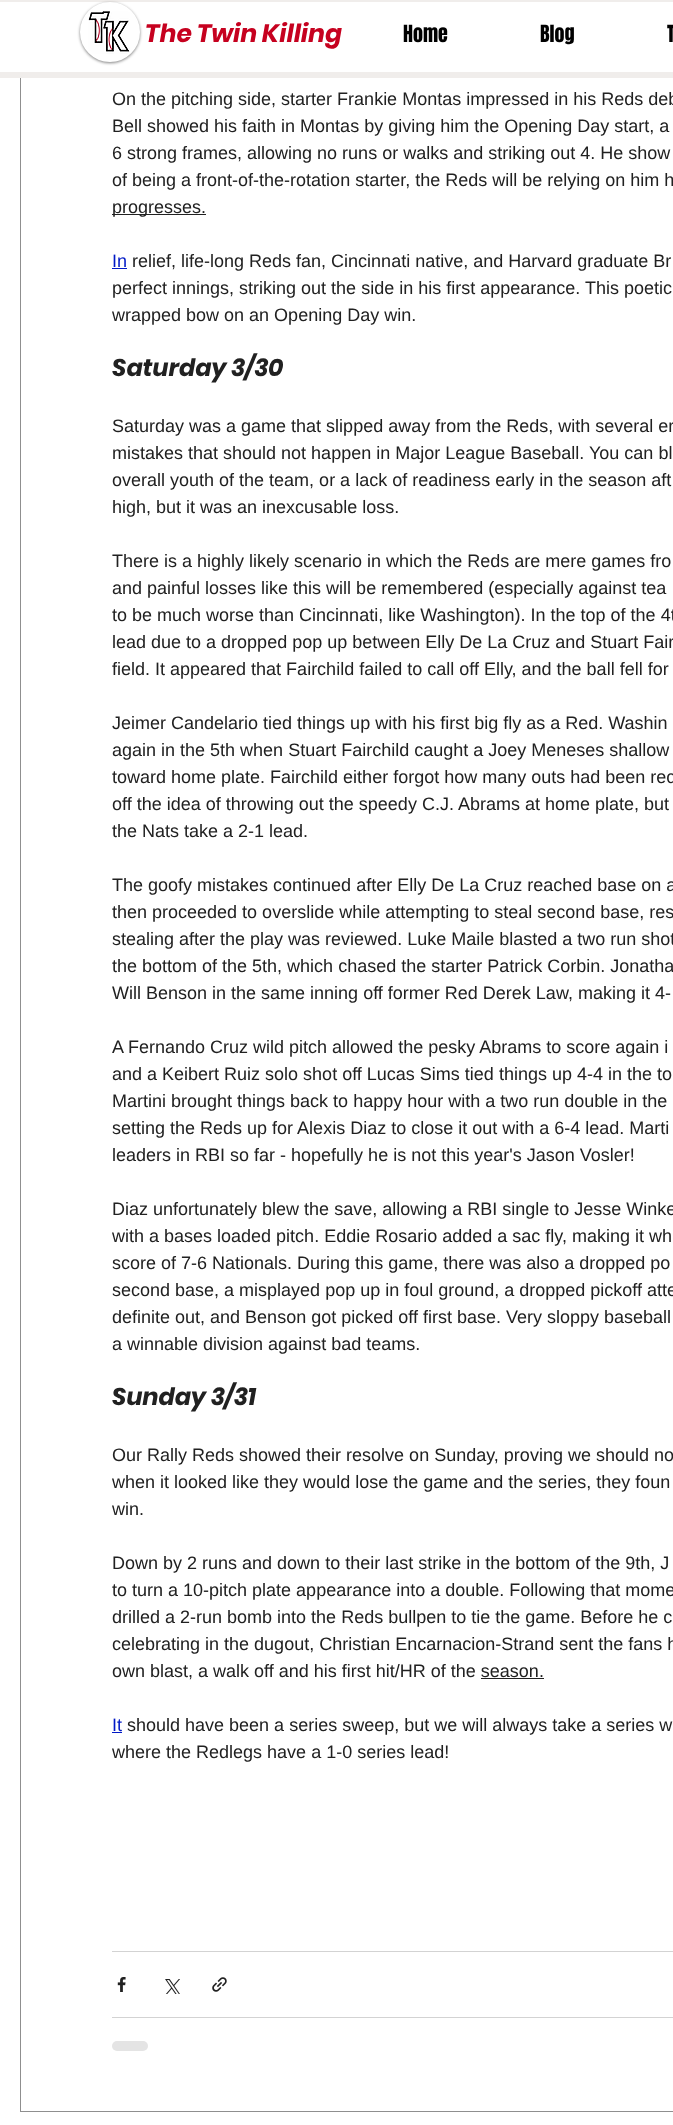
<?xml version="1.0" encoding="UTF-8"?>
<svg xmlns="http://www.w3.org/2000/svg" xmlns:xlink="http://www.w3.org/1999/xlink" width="673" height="2125">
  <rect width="100%" height="100%" fill="#ffffff" />
  <rect x="20.5" y="-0.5" width="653" height="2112" fill="none" stroke="#8f8f8f" />
  <rect width="673" height="78" fill="#f0edeb" />
  <rect y="2" width="673" height="70" fill="#ffffff" />
  <rect x="80" y="3" width="60" height="60" rx="30" fill="#000000" fill-opacity="0.5" filter="blur(1.5px)" />
  <circle cx="110" cy="32" r="29" fill="#ffffff" stroke="#ffffff" stroke-width="2" />
  <image x="88" y="11" width="42" height="43" xlink:href="image1.png" />
  <rect x="112" y="214" width="94" height="1" fill="#212121" />
  <rect x="112" y="268" width="15" height="1" fill="#0119c6" />
  <rect x="481" y="1678" width="63" height="1" fill="#212121" />
  <rect x="112" y="1732" width="10" height="1" fill="#0119c6" />
  <rect x="112" y="1951" width="561" height="1" fill="#d3d3d3" />
  <image x="117" y="1977" width="9" height="15" xlink:href="image2.png" />
  <image x="165" y="1979" width="15" height="15" xlink:href="image3.png" />
  <image x="212" y="1977" width="15" height="15" xlink:href="image4.png" />
  <rect x="112" y="2017" width="561" height="1" fill="#d3d3d3" />
  <rect x="112" y="2041" width="36" height="10" rx="5" fill="#e4e4e4" />
  <text x="145" y="42" style="font-family: Poppins; font-size: 25px; font-weight: bold; font-style: italic; fill: #c6011f">The Twin Killing</text>
  <text x="403" y="42" style="font-family: Anton; font-size: 20px; fill: #000000">Home</text>
  <text x="540" y="42" style="font-family: Anton; font-size: 20px; fill: #000000">Blog</text>
  <text x="667" y="42" style="font-family: Anton; font-size: 20px; fill: #000000">T</text>
  <text x="112" y="105" style="font-family: Liberation Sans; font-size: 18px; fill: #212121">On the pitching side, starter Frankie Montas impressed in his Reds deb</text>
  <text x="112" y="132" style="font-family: Liberation Sans; font-size: 18px; fill: #212121">Bell showed his faith in Montas by giving him the Opening Day start, a</text>
  <text x="112" y="159" style="font-family: Liberation Sans; font-size: 18px; fill: #212121">6 strong frames, allowing no runs or walks and striking out 4. He show</text>
  <text x="112" y="186" style="font-family: Liberation Sans; font-size: 18px; fill: #212121">of being a front-of-the-rotation starter, the Reds will be relying on him h</text>
  <text x="112" y="213" style="font-family: Liberation Sans; font-size: 18px; fill: #212121">progresses.</text>
  <text x="112" y="267" style="font-family: Liberation Sans; font-size: 18px; fill: #0119c6">In</text>
  <text x="132" y="267" style="font-family: Liberation Sans; font-size: 18px; fill: #212121">relief, life-long Reds fan, Cincinnati native, and Harvard graduate Br</text>
  <text x="112" y="294" style="font-family: Liberation Sans; font-size: 18px; fill: #212121">perfect innings, striking out the side in his first appearance. This poetic</text>
  <text x="112" y="321" style="font-family: Liberation Sans; font-size: 18px; fill: #212121">wrapped bow on an Opening Day win.</text>
  <text x="112" y="376" style="font-family: Poppins; font-size: 24px; font-weight: bold; font-style: italic; fill: #212121">Saturday 3/30</text>
  <text x="112" y="432" style="font-family: Liberation Sans; font-size: 18px; fill: #212121">Saturday was a game that slipped away from the Reds, with several er</text>
  <text x="112" y="459" style="font-family: Liberation Sans; font-size: 18px; fill: #212121">mistakes that should not happen in Major League Baseball. You can bl</text>
  <text x="112" y="486" style="font-family: Liberation Sans; font-size: 18px; fill: #212121">overall youth of the team, or a lack of readiness early in the season aft</text>
  <text x="112" y="513" style="font-family: Liberation Sans; font-size: 18px; fill: #212121">high, but it was an inexcusable loss.</text>
  <text x="112" y="567" style="font-family: Liberation Sans; font-size: 18px; fill: #212121">There is a highly likely scenario in which the Reds are mere games fro</text>
  <text x="112" y="594" style="font-family: Liberation Sans; font-size: 18px; fill: #212121">and painful losses like this will be remembered (especially against tea</text>
  <text x="112" y="621" style="font-family: Liberation Sans; font-size: 18px; fill: #212121">to be much worse than Cincinnati, like Washington). In the top of the 4t</text>
  <text x="112" y="648" style="font-family: Liberation Sans; font-size: 18px; fill: #212121">lead due to a dropped pop up between Elly De La Cruz and Stuart Fair</text>
  <text x="112" y="675" style="font-family: Liberation Sans; font-size: 18px; fill: #212121">field. It appeared that Fairchild failed to call off Elly, and the ball fell for</text>
  <text x="112" y="729" style="font-family: Liberation Sans; font-size: 18px; fill: #212121">Jeimer Candelario tied things up with his first big fly as a Red. Washin</text>
  <text x="112" y="756" style="font-family: Liberation Sans; font-size: 18px; fill: #212121">again in the 5th when Stuart Fairchild caught a Joey Meneses shallow</text>
  <text x="112" y="783" style="font-family: Liberation Sans; font-size: 18px; fill: #212121">toward home plate. Fairchild either forgot how many outs had been rec</text>
  <text x="112" y="810" style="font-family: Liberation Sans; font-size: 18px; fill: #212121">off the idea of throwing out the speedy C.J. Abrams at home plate, but</text>
  <text x="112" y="837" style="font-family: Liberation Sans; font-size: 18px; fill: #212121">the Nats take a 2-1 lead.</text>
  <text x="112" y="891" style="font-family: Liberation Sans; font-size: 18px; fill: #212121">The goofy mistakes continued after Elly De La Cruz reached base on a</text>
  <text x="112" y="918" style="font-family: Liberation Sans; font-size: 18px; fill: #212121">then proceeded to overslide while attempting to steal second base, res</text>
  <text x="112" y="945" style="font-family: Liberation Sans; font-size: 18px; fill: #212121">stealing after the play was reviewed. Luke Maile blasted a two run shot</text>
  <text x="112" y="972" style="font-family: Liberation Sans; font-size: 18px; fill: #212121">the bottom of the 5th, which chased the starter Patrick Corbin. Jonatha</text>
  <text x="112" y="999" style="font-family: Liberation Sans; font-size: 18px; fill: #212121">Will Benson in the same inning off former Red Derek Law, making it 4-</text>
  <text x="112" y="1053" style="font-family: Liberation Sans; font-size: 18px; fill: #212121">A Fernando Cruz wild pitch allowed the pesky Abrams to score again i</text>
  <text x="112" y="1080" style="font-family: Liberation Sans; font-size: 18px; fill: #212121">and a Keibert Ruiz solo shot off Lucas Sims tied things up 4-4 in the to</text>
  <text x="112" y="1107" style="font-family: Liberation Sans; font-size: 18px; fill: #212121">Martini brought things back to happy hour with a two run double in the</text>
  <text x="112" y="1134" style="font-family: Liberation Sans; font-size: 18px; fill: #212121">setting the Reds up for Alexis Diaz to close it out with a 6-4 lead. Marti</text>
  <text x="112" y="1161" style="font-family: Liberation Sans; font-size: 18px; fill: #212121">leaders in RBI so far - hopefully he is not this year's Jason Vosler!</text>
  <text x="112" y="1215" style="font-family: Liberation Sans; font-size: 18px; fill: #212121">Diaz unfortunately blew the save, allowing a RBI single to Jesse Winke</text>
  <text x="112" y="1242" style="font-family: Liberation Sans; font-size: 18px; fill: #212121">with a bases loaded pitch. Eddie Rosario added a sac fly, making it wh</text>
  <text x="112" y="1269" style="font-family: Liberation Sans; font-size: 18px; fill: #212121">score of 7-6 Nationals. During this game, there was also a dropped po</text>
  <text x="112" y="1296" style="font-family: Liberation Sans; font-size: 18px; fill: #212121">second base, a misplayed pop up in foul ground, a dropped pickoff atte</text>
  <text x="112" y="1323" style="font-family: Liberation Sans; font-size: 18px; fill: #212121">definite out, and Benson got picked off first base. Very sloppy baseball</text>
  <text x="112" y="1350" style="font-family: Liberation Sans; font-size: 18px; fill: #212121">a winnable division against bad teams.</text>
  <text x="112" y="1405" style="font-family: Poppins; font-size: 24px; font-weight: bold; font-style: italic; fill: #212121">Sunday 3/31</text>
  <text x="112" y="1461" style="font-family: Liberation Sans; font-size: 18px; fill: #212121">Our Rally Reds showed their resolve on Sunday, proving we should no</text>
  <text x="112" y="1488" style="font-family: Liberation Sans; font-size: 18px; fill: #212121">when it looked like they would lose the game and the series, they foun</text>
  <text x="112" y="1515" style="font-family: Liberation Sans; font-size: 18px; fill: #212121">win.</text>
  <text x="112" y="1569" style="font-family: Liberation Sans; font-size: 18px; fill: #212121">Down by 2 runs and down to their last strike in the bottom of the 9th, J</text>
  <text x="112" y="1596" style="font-family: Liberation Sans; font-size: 18px; fill: #212121">to turn a 10-pitch plate appearance into a double. Following that mome</text>
  <text x="112" y="1623" style="font-family: Liberation Sans; font-size: 18px; fill: #212121">drilled a 2-run bomb into the Reds bullpen to tie the game. Before he c</text>
  <text x="112" y="1650" style="font-family: Liberation Sans; font-size: 18px; fill: #212121">celebrating in the dugout, Christian Encarnacion-Strand sent the fans h</text>
  <text x="112" y="1677" style="font-family: Liberation Sans; font-size: 18px; fill: #212121">own blast, a walk off and his first hit/HR of the season.</text>
  <text x="112" y="1731" style="font-family: Liberation Sans; font-size: 18px; fill: #0119c6">It</text>
  <text x="127" y="1731" style="font-family: Liberation Sans; font-size: 18px; fill: #212121">should have been a series sweep, but we will always take a series w</text>
  <text x="112" y="1758" style="font-family: Liberation Sans; font-size: 18px; fill: #212121">where the Redlegs have a 1-0 series lead!</text>
</svg>
